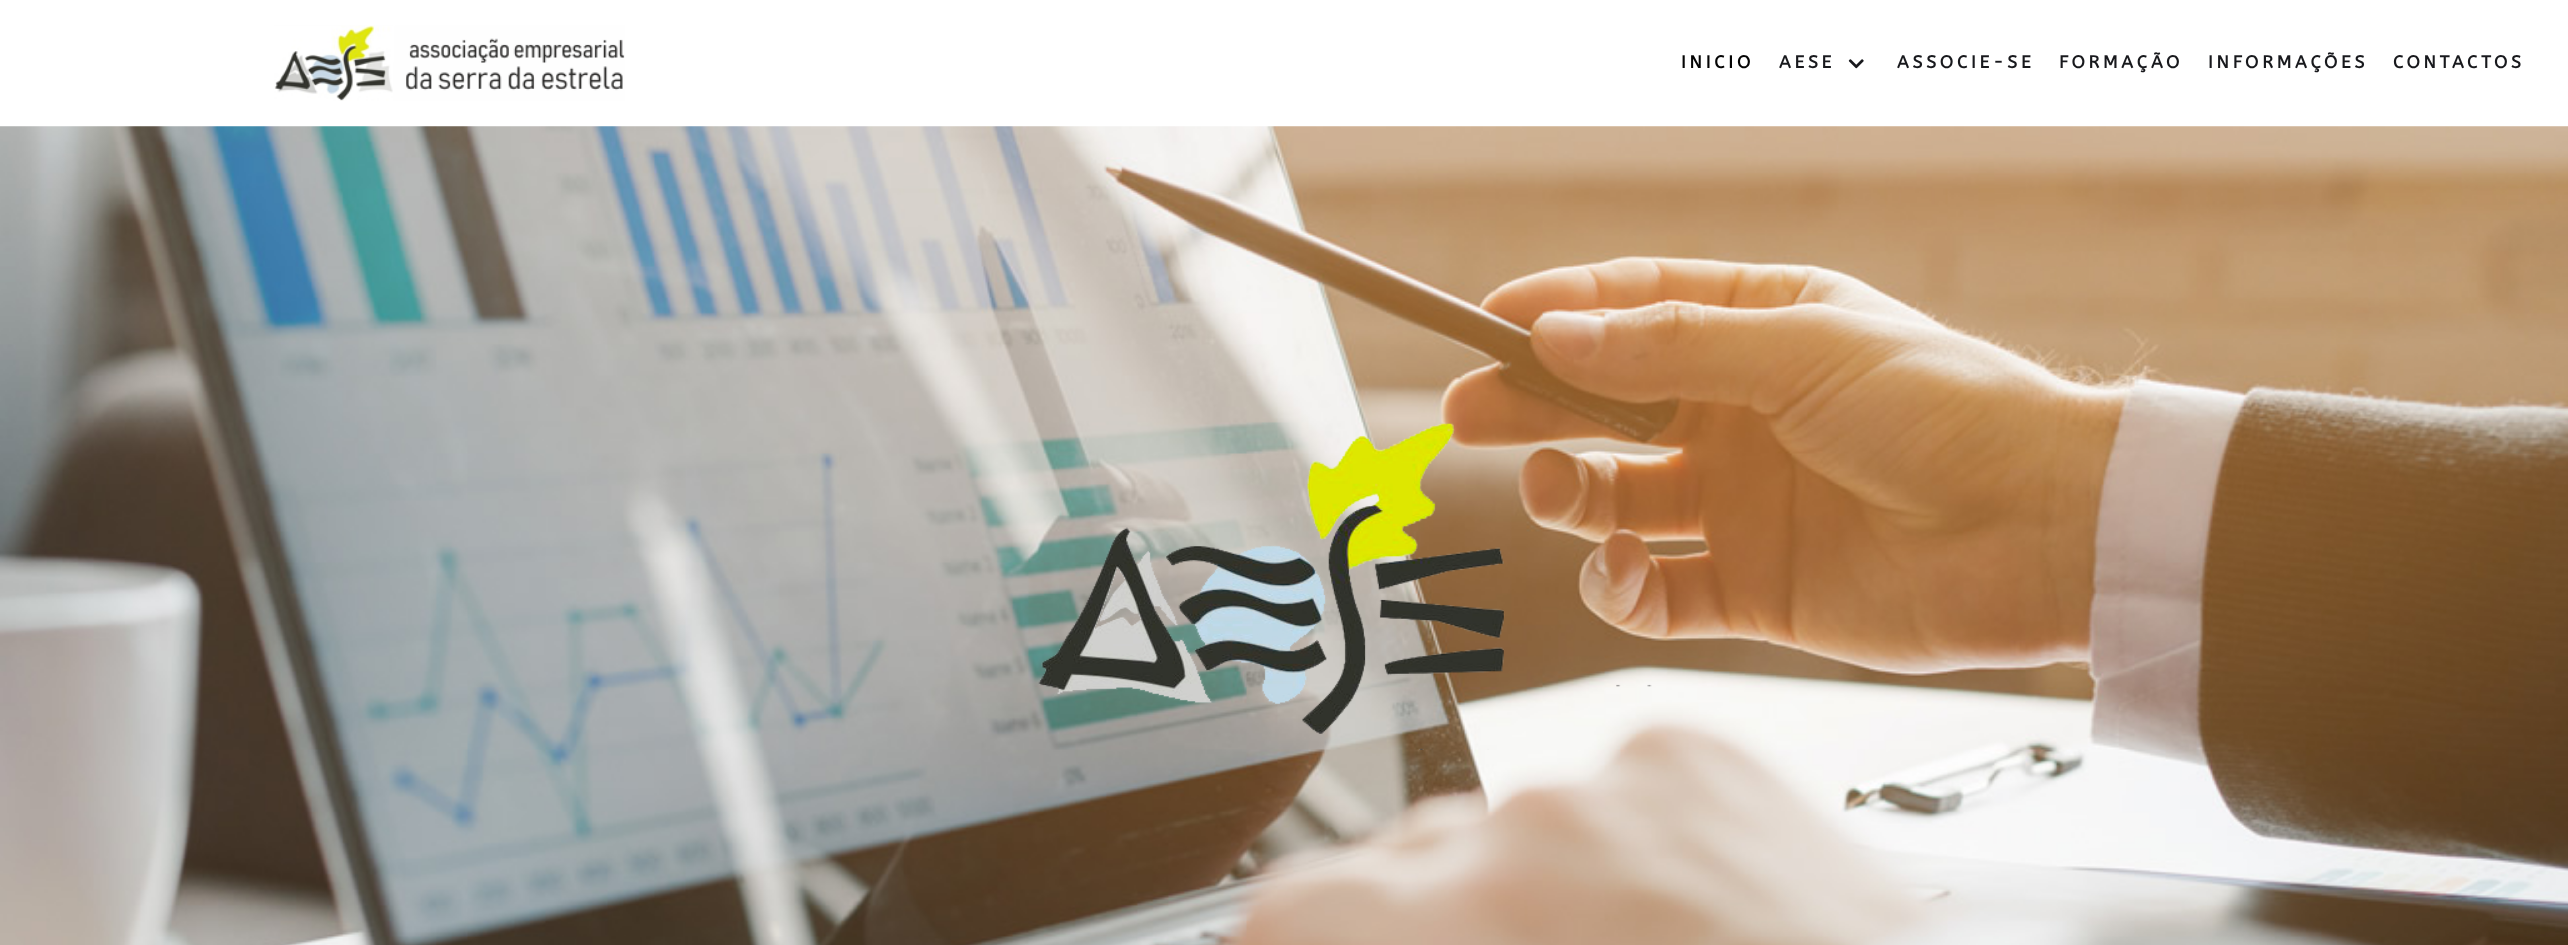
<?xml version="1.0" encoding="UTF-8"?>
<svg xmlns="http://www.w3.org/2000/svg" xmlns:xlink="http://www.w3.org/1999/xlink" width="2568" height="945">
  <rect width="100%" height="100%" fill="#ffffff" />
  <image x="274" y="25" width="351" height="76" xlink:href="image1.png" />
  <image x="1848" y="59" width="16" height="10" xlink:href="image2.png" />
  <image x="0" y="126" width="2568" height="819" xlink:href="image3.png" />
  <image x="1038" y="423" width="614" height="327" xlink:href="image4.png" />
  <text x="1681" y="68" style="font-family: ABeeZee; font-size: 17.5px; font-weight: bold; letter-spacing: 3.75px; fill: #040404">INICIO</text>
  <text x="1779" y="68" style="font-family: ABeeZee; font-size: 17.5px; font-weight: bold; letter-spacing: 3.75px; fill: #18191d">AESE</text>
  <text x="1897" y="68" style="font-family: ABeeZee; font-size: 17.5px; font-weight: bold; letter-spacing: 3.75px; fill: #18191d">ASSOCIE-SE</text>
  <text x="2059" y="68" style="font-family: ABeeZee; font-size: 17.5px; font-weight: bold; letter-spacing: 3.75px; fill: #18191d">FORMAÇÃO</text>
  <text x="2208" y="68" style="font-family: ABeeZee; font-size: 17.5px; font-weight: bold; letter-spacing: 3.75px; fill: #18191d">INFORMAÇÕES</text>
  <text x="2393" y="68" style="font-family: ABeeZee; font-size: 17.5px; font-weight: bold; letter-spacing: 3.75px; fill: #18191d">CONTACTOS</text>
</svg>
